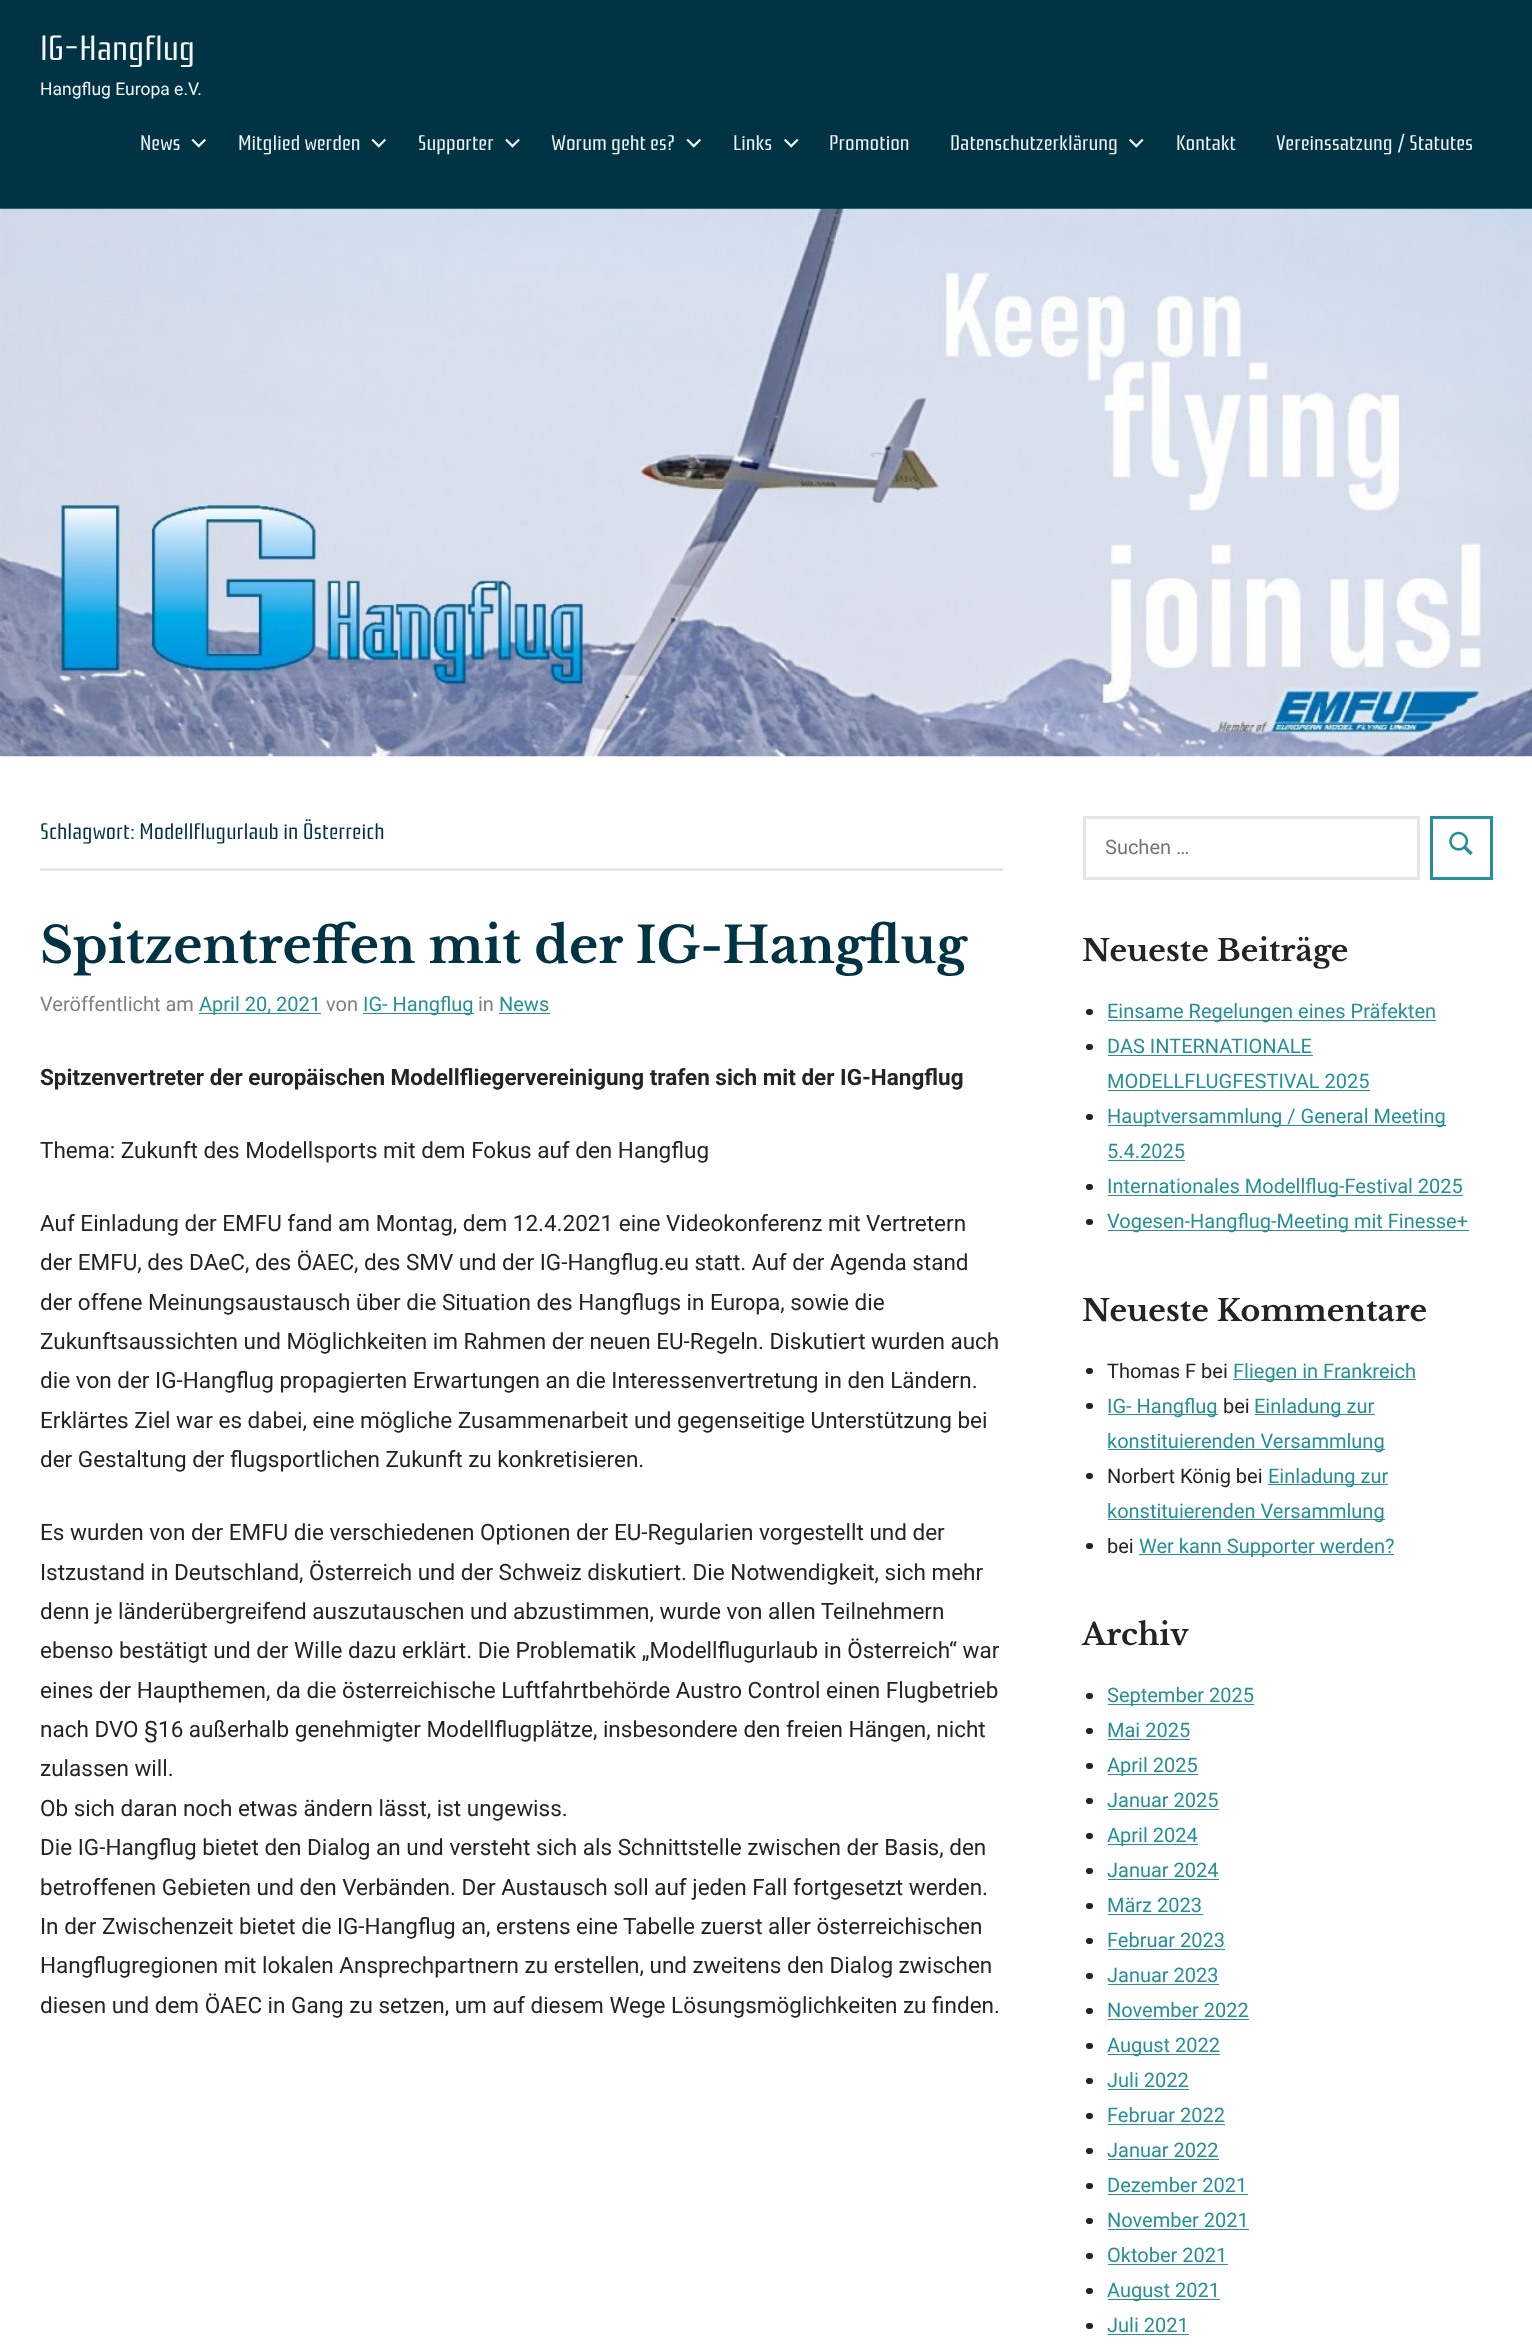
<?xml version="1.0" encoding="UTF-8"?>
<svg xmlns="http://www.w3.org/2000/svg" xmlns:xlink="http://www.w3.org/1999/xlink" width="1532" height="2351">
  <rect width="100%" height="100%" fill="#ffffff" />
  <rect width="1532" height="209" fill="#003344" />
  <image x="191" y="138" width="15" height="10" xlink:href="image1.png" />
  <image x="371" y="138" width="15" height="10" xlink:href="image1.png" />
  <image x="505" y="138" width="15" height="10" xlink:href="image2.png" />
  <image x="686" y="138" width="15" height="10" xlink:href="image1.png" />
  <image x="784" y="138" width="15" height="10" xlink:href="image3.png" />
  <image x="1129" y="138" width="15" height="10" xlink:href="image3.png" />
  <image x="0" y="208" width="1532" height="549" xlink:href="image4.png" />
  <rect x="40" y="868" width="963" height="3" fill="#e6e6e6" />
  <rect x="199" y="1013" width="122" height="1" fill="#268f97" />
  <rect x="363" y="1013" width="111" height="1" fill="#268f97" />
  <rect x="499" y="1013" width="51" height="1" fill="#268f97" />
  <rect x="1084.5" y="817.5" width="334" height="61" fill="none" stroke="#e6e6e6" stroke-width="3" />
  <rect x="1431.5" y="817.5" width="60" height="61" fill="none" stroke="#268f97" stroke-width="3" />
  <image x="1449" y="831" width="24" height="25" xlink:href="image5.png" />
  <rect x="1086" y="1009" width="7" height="6" rx="3" fill="#242424" />
  <rect x="1108" y="1020" width="328" height="1" fill="#268f97" />
  <rect x="1086" y="1044" width="7" height="6" rx="3" fill="#242424" />
  <rect x="1108" y="1055" width="205" height="1" fill="#268f97" />
  <rect x="1108" y="1090" width="262" height="1" fill="#268f97" />
  <rect x="1086" y="1114" width="7" height="6" rx="3" fill="#242424" />
  <rect x="1108" y="1125" width="338" height="1" fill="#268f97" />
  <rect x="1108" y="1160" width="77" height="1" fill="#268f97" />
  <rect x="1086" y="1184" width="7" height="6" rx="3" fill="#242424" />
  <rect x="1108" y="1195" width="355" height="1" fill="#268f97" />
  <rect x="1086" y="1219" width="7" height="6" rx="3" fill="#242424" />
  <rect x="1108" y="1230" width="361" height="1" fill="#268f97" />
  <rect x="1086" y="1368" width="7" height="6" rx="3" fill="#242424" />
  <rect x="1233" y="1379" width="183" height="1" fill="#268f97" />
  <rect x="1086" y="1403" width="7" height="6" rx="3" fill="#242424" />
  <rect x="1108" y="1414" width="110" height="1" fill="#268f97" />
  <rect x="1255" y="1414" width="120" height="1" fill="#268f97" />
  <rect x="1108" y="1449" width="277" height="1" fill="#268f97" />
  <rect x="1086" y="1473" width="7" height="6" rx="3" fill="#242424" />
  <rect x="1268" y="1484" width="120" height="1" fill="#268f97" />
  <rect x="1108" y="1519" width="277" height="1" fill="#268f97" />
  <rect x="1086" y="1543" width="7" height="6" rx="3" fill="#242424" />
  <rect x="1139" y="1554" width="255" height="1" fill="#268f97" />
  <rect x="1086" y="1693" width="7" height="6" rx="3" fill="#242424" />
  <rect x="1108" y="1704" width="146" height="1" fill="#268f97" />
  <rect x="1086" y="1728" width="7" height="6" rx="3" fill="#242424" />
  <rect x="1108" y="1739" width="82" height="1" fill="#268f97" />
  <rect x="1086" y="1763" width="7" height="6" rx="3" fill="#242424" />
  <rect x="1108" y="1774" width="90" height="1" fill="#268f97" />
  <rect x="1086" y="1798" width="7" height="6" rx="3" fill="#242424" />
  <rect x="1108" y="1809" width="111" height="1" fill="#268f97" />
  <rect x="1086" y="1833" width="7" height="6" rx="3" fill="#242424" />
  <rect x="1108" y="1844" width="90" height="1" fill="#268f97" />
  <rect x="1086" y="1868" width="7" height="6" rx="3" fill="#242424" />
  <rect x="1108" y="1879" width="111" height="1" fill="#268f97" />
  <rect x="1086" y="1903" width="7" height="6" rx="3" fill="#242424" />
  <rect x="1108" y="1914" width="95" height="1" fill="#268f97" />
  <rect x="1086" y="1938" width="7" height="6" rx="3" fill="#242424" />
  <rect x="1108" y="1949" width="117" height="1" fill="#268f97" />
  <rect x="1086" y="1973" width="7" height="6" rx="3" fill="#242424" />
  <rect x="1108" y="1984" width="111" height="1" fill="#268f97" />
  <rect x="1086" y="2008" width="7" height="6" rx="3" fill="#242424" />
  <rect x="1108" y="2019" width="141" height="1" fill="#268f97" />
  <rect x="1086" y="2043" width="7" height="6" rx="3" fill="#242424" />
  <rect x="1108" y="2054" width="112" height="1" fill="#268f97" />
  <rect x="1086" y="2078" width="7" height="6" rx="3" fill="#242424" />
  <rect x="1108" y="2089" width="81" height="1" fill="#268f97" />
  <rect x="1086" y="2113" width="7" height="6" rx="3" fill="#242424" />
  <rect x="1108" y="2124" width="117" height="1" fill="#268f97" />
  <rect x="1086" y="2148" width="7" height="6" rx="3" fill="#242424" />
  <rect x="1108" y="2159" width="111" height="1" fill="#268f97" />
  <rect x="1086" y="2183" width="7" height="6" rx="3" fill="#242424" />
  <rect x="1108" y="2194" width="140" height="1" fill="#268f97" />
  <rect x="1086" y="2218" width="7" height="6" rx="3" fill="#242424" />
  <rect x="1108" y="2229" width="141" height="1" fill="#268f97" />
  <rect x="1086" y="2253" width="7" height="6" rx="3" fill="#242424" />
  <rect x="1108" y="2264" width="120" height="1" fill="#268f97" />
  <rect x="1086" y="2288" width="7" height="6" rx="3" fill="#242424" />
  <rect x="1108" y="2299" width="112" height="1" fill="#268f97" />
  <rect x="1086" y="2323" width="7" height="6" rx="3" fill="#242424" />
  <rect x="1108" y="2334" width="81" height="1" fill="#268f97" />
  <text x="40" y="60" style="font-family: Rationale; font-size: 35px; fill: #f2f5f6">IG-Hangflug</text>
  <text x="40" y="95" style="font-family: Roboto; font-size: 17.5px; fill: #f2f5f6">Hangflug Europa e.V.</text>
  <text x="140" y="150" style="font-family: Rationale; font-size: 21.25px; fill: #f2f5f6">News</text>
  <text x="238" y="150" style="font-family: Rationale; font-size: 21.25px; fill: #f2f5f6">Mitglied werden</text>
  <text x="418" y="150" style="font-family: Rationale; font-size: 21.25px; fill: #f2f5f6">Supporter</text>
  <text x="551" y="150" style="font-family: Rationale; font-size: 21.25px; fill: #f2f5f6">Worum geht es?</text>
  <text x="733" y="150" style="font-family: Rationale; font-size: 21.25px; fill: #f2f5f6">Links</text>
  <text x="829" y="150" style="font-family: Rationale; font-size: 21.25px; fill: #f2f5f6">Promotion</text>
  <text x="950" y="150" style="font-family: Rationale; font-size: 21.25px; fill: #f2f5f6">Datenschutzerklärung</text>
  <text x="1176" y="150" style="font-family: Rationale; font-size: 21.25px; fill: #f2f5f6">Kontakt</text>
  <text x="1276" y="150" style="font-family: Rationale; font-size: 21.25px; fill: #f2f5f6">Vereinssatzung / Statutes</text>
  <text x="40" y="839" style="font-family: Rationale; font-size: 22.5px; fill: #003344">Schlagwort: Modellflugurlaub in Österreich</text>
  <text x="40" y="963" style="font-family: Libre Baskerville; font-size: 50px; font-weight: bold; fill: #003344">Spitzentreffen mit der IG-Hangflug</text>
  <text x="40" y="1011" style="font-family: Roboto; font-size: 20px; fill: #808080">Veröffentlicht am</text>
  <text x="199" y="1011" style="font-family: Roboto; font-size: 20px; fill: #268f97">April 20, 2021</text>
  <text x="326" y="1011" style="font-family: Roboto; font-size: 20px; fill: #808080">von</text>
  <text x="363" y="1011" style="font-family: Roboto; font-size: 20px; fill: #268f97">IG- Hangflug</text>
  <text x="478" y="1011" style="font-family: Roboto; font-size: 20px; fill: #808080">in</text>
  <text x="499" y="1011" style="font-family: Roboto; font-size: 20px; fill: #268f97">News</text>
  <text x="40" y="1085" style="font-family: Roboto; font-size: 22.5px; font-weight: bold; fill: #242424">Spitzenvertreter der europäischen Modellfliegervereinigung trafen sich mit der IG-Hangflug</text>
  <text x="40" y="1158" style="font-family: Roboto; font-size: 22.5px; fill: #242424">Thema: Zukunft des Modellsports mit dem Fokus auf den Hangflug</text>
  <text x="40" y="1231" style="font-family: Roboto; font-size: 22.5px; fill: #242424">Auf Einladung der EMFU fand am Montag, dem 12.4.2021 eine Videokonferenz mit Vertretern</text>
  <text x="40" y="1270" style="font-family: Roboto; font-size: 22.5px; fill: #242424">der EMFU, des DAeC, des ÖAEC, des SMV und der IG-Hangflug.eu statt. Auf der Agenda stand</text>
  <text x="40" y="1310" style="font-family: Roboto; font-size: 22.5px; fill: #242424">der offene Meinungsaustausch über die Situation des Hangflugs in Europa, sowie die</text>
  <text x="40" y="1349" style="font-family: Roboto; font-size: 22.5px; fill: #242424">Zukunftsaussichten und Möglichkeiten im Rahmen der neuen EU-Regeln. Diskutiert wurden auch</text>
  <text x="40" y="1388" style="font-family: Roboto; font-size: 22.5px; fill: #242424">die von der IG-Hangflug propagierten Erwartungen an die Interessenvertretung in den Ländern.</text>
  <text x="40" y="1428" style="font-family: Roboto; font-size: 22.5px; fill: #242424">Erklärtes Ziel war es dabei, eine mögliche Zusammenarbeit und gegenseitige Unterstützung bei</text>
  <text x="40" y="1467" style="font-family: Roboto; font-size: 22.5px; fill: #242424">der Gestaltung der flugsportlichen Zukunft zu konkretisieren.</text>
  <text x="40" y="1540" style="font-family: Roboto; font-size: 22.5px; fill: #242424">Es wurden von der EMFU die verschiedenen Optionen der EU-Regularien vorgestellt und der</text>
  <text x="40" y="1580" style="font-family: Roboto; font-size: 22.5px; fill: #242424">Istzustand in Deutschland, Österreich und der Schweiz diskutiert. Die Notwendigkeit, sich mehr</text>
  <text x="40" y="1619" style="font-family: Roboto; font-size: 22.5px; fill: #242424">denn je länderübergreifend auszutauschen und abzustimmen, wurde von allen Teilnehmern</text>
  <text x="40" y="1658" style="font-family: Roboto; font-size: 22.5px; fill: #242424">ebenso bestätigt und der Wille dazu erklärt. Die Problematik „Modellflugurlaub in Österreich“ war</text>
  <text x="40" y="1698" style="font-family: Roboto; font-size: 22.5px; fill: #242424">eines der Haupthemen, da die österreichische Luftfahrtbehörde Austro Control einen Flugbetrieb</text>
  <text x="40" y="1737" style="font-family: Roboto; font-size: 22.5px; fill: #242424">nach DVO §16 außerhalb genehmigter Modellflugplätze, insbesondere den freien Hängen, nicht</text>
  <text x="40" y="1776" style="font-family: Roboto; font-size: 22.5px; fill: #242424">zulassen will.</text>
  <text x="40" y="1816" style="font-family: Roboto; font-size: 22.5px; fill: #242424">Ob sich daran noch etwas ändern lässt, ist ungewiss.</text>
  <text x="40" y="1855" style="font-family: Roboto; font-size: 22.5px; fill: #242424">Die IG-Hangflug bietet den Dialog an und versteht sich als Schnittstelle zwischen der Basis, den</text>
  <text x="40" y="1895" style="font-family: Roboto; font-size: 22.5px; fill: #242424">betroffenen Gebieten und den Verbänden. Der Austausch soll auf jeden Fall fortgesetzt werden.</text>
  <text x="40" y="1934" style="font-family: Roboto; font-size: 22.5px; fill: #242424">In der Zwischenzeit bietet die IG-Hangflug an, erstens eine Tabelle zuerst aller österreichischen</text>
  <text x="40" y="1973" style="font-family: Roboto; font-size: 22.5px; fill: #242424">Hangflugregionen mit lokalen Ansprechpartnern zu erstellen, und zweitens den Dialog zwischen</text>
  <text x="40" y="2013" style="font-family: Roboto; font-size: 22.5px; fill: #242424">diesen und dem ÖAEC in Gang zu setzen, um auf diesem Wege Lösungsmöglichkeiten zu finden.</text>
  <text x="1105" y="854" style="font-family: Roboto; font-size: 20px; fill: #757575">Suchen …</text>
  <text x="1082" y="961" style="font-family: Libre Baskerville; font-size: 30px; font-weight: bold; fill: #242424">Neueste Beiträge</text>
  <text x="1107" y="1018" style="font-family: Roboto; font-size: 20px; fill: #268f97">Einsame Regelungen eines Präfekten</text>
  <text x="1107" y="1053" style="font-family: Roboto; font-size: 20px; fill: #268f97">DAS INTERNATIONALE</text>
  <text x="1107" y="1088" style="font-family: Roboto; font-size: 20px; fill: #268f97">MODELLFLUGFESTIVAL 2025</text>
  <text x="1107" y="1123" style="font-family: Roboto; font-size: 20px; fill: #268f97">Hauptversammlung / General Meeting</text>
  <text x="1107" y="1158" style="font-family: Roboto; font-size: 20px; fill: #268f97">5.4.2025</text>
  <text x="1107" y="1193" style="font-family: Roboto; font-size: 20px; fill: #268f97">Internationales Modellflug-Festival 2025</text>
  <text x="1107" y="1228" style="font-family: Roboto; font-size: 20px; fill: #268f97">Vogesen-Hangflug-Meeting mit Finesse+</text>
  <text x="1082" y="1321" style="font-family: Libre Baskerville; font-size: 30px; font-weight: bold; fill: #242424">Neueste Kommentare</text>
  <text x="1107" y="1378" style="font-family: Roboto; font-size: 20px; fill: #242424">Thomas F bei</text>
  <text x="1233" y="1378" style="font-family: Roboto; font-size: 20px; fill: #268f97">Fliegen in Frankreich</text>
  <text x="1107" y="1413" style="font-family: Roboto; font-size: 20px; fill: #268f97">IG- Hangflug</text>
  <text x="1223" y="1413" style="font-family: Roboto; font-size: 20px; fill: #242424">bei</text>
  <text x="1254" y="1413" style="font-family: Roboto; font-size: 20px; fill: #268f97">Einladung zur</text>
  <text x="1107" y="1448" style="font-family: Roboto; font-size: 20px; fill: #268f97">konstituierenden Versammlung</text>
  <text x="1107" y="1483" style="font-family: Roboto; font-size: 20px; fill: #242424">Norbert König bei</text>
  <text x="1268" y="1483" style="font-family: Roboto; font-size: 20px; fill: #268f97">Einladung zur</text>
  <text x="1107" y="1518" style="font-family: Roboto; font-size: 20px; fill: #268f97">konstituierenden Versammlung</text>
  <text x="1107" y="1553" style="font-family: Roboto; font-size: 20px; fill: #242424">bei</text>
  <text x="1139" y="1553" style="font-family: Roboto; font-size: 20px; fill: #268f97">Wer kann Supporter werden?</text>
  <text x="1082" y="1645" style="font-family: Libre Baskerville; font-size: 30px; font-weight: bold; fill: #242424">Archiv</text>
  <text x="1107" y="1702" style="font-family: Roboto; font-size: 20px; fill: #268f97">September 2025</text>
  <text x="1107" y="1737" style="font-family: Roboto; font-size: 20px; fill: #268f97">Mai 2025</text>
  <text x="1107" y="1772" style="font-family: Roboto; font-size: 20px; fill: #268f97">April 2025</text>
  <text x="1107" y="1807" style="font-family: Roboto; font-size: 20px; fill: #268f97">Januar 2025</text>
  <text x="1107" y="1842" style="font-family: Roboto; font-size: 20px; fill: #268f97">April 2024</text>
  <text x="1107" y="1877" style="font-family: Roboto; font-size: 20px; fill: #268f97">Januar 2024</text>
  <text x="1107" y="1912" style="font-family: Roboto; font-size: 20px; fill: #268f97">März 2023</text>
  <text x="1107" y="1947" style="font-family: Roboto; font-size: 20px; fill: #268f97">Februar 2023</text>
  <text x="1107" y="1982" style="font-family: Roboto; font-size: 20px; fill: #268f97">Januar 2023</text>
  <text x="1107" y="2017" style="font-family: Roboto; font-size: 20px; fill: #268f97">November 2022</text>
  <text x="1107" y="2052" style="font-family: Roboto; font-size: 20px; fill: #268f97">August 2022</text>
  <text x="1107" y="2087" style="font-family: Roboto; font-size: 20px; fill: #268f97">Juli 2022</text>
  <text x="1107" y="2122" style="font-family: Roboto; font-size: 20px; fill: #268f97">Februar 2022</text>
  <text x="1107" y="2157" style="font-family: Roboto; font-size: 20px; fill: #268f97">Januar 2022</text>
  <text x="1107" y="2192" style="font-family: Roboto; font-size: 20px; fill: #268f97">Dezember 2021</text>
  <text x="1107" y="2227" style="font-family: Roboto; font-size: 20px; fill: #268f97">November 2021</text>
  <text x="1107" y="2262" style="font-family: Roboto; font-size: 20px; fill: #268f97">Oktober 2021</text>
  <text x="1107" y="2297" style="font-family: Roboto; font-size: 20px; fill: #268f97">August 2021</text>
  <text x="1107" y="2332" style="font-family: Roboto; font-size: 20px; fill: #268f97">Juli 2021</text>
</svg>
